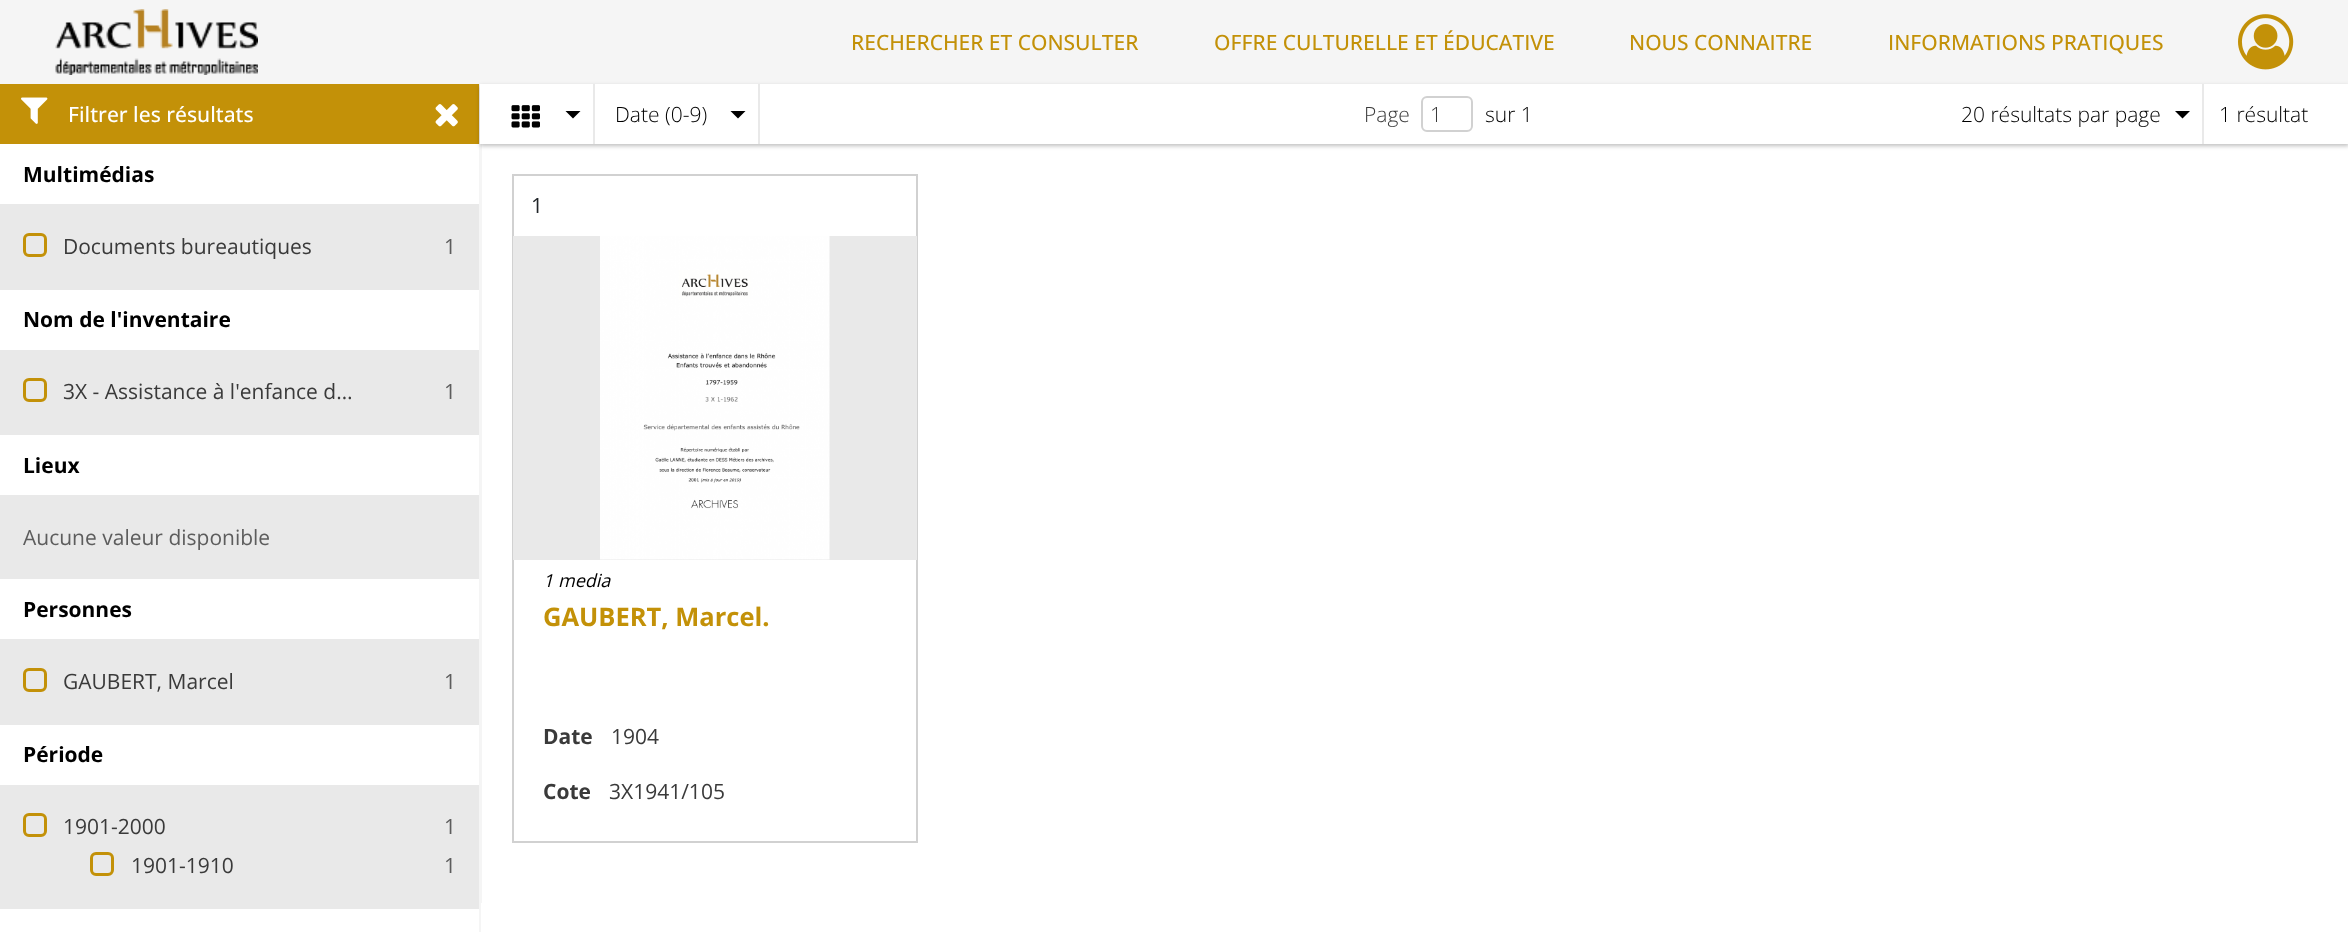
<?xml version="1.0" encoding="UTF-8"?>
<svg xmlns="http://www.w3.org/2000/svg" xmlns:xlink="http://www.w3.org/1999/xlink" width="2348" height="932">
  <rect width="100%" height="100%" fill="#ffffff" />
  <rect width="2348" height="84" fill="#f5f5f5" />
  <image x="55" y="9" width="203" height="66" xlink:href="image1.png" />
  <image x="2238" y="14" width="56" height="56" xlink:href="image2.png" />
  <rect y="204" width="479" height="705" fill="#e9e9e9" />
  <rect x="479" y="84" width="2" height="848" fill="#f5f5f5" />
  <rect y="84" width="479" height="60" fill="#c39108" />
  <image x="21" y="97" width="27" height="27" xlink:href="image3.png" />
  <image x="435" y="104" width="23" height="23" xlink:href="image4.png" />
  <rect x="24.5" y="234.5" width="21" height="21" rx="4.5" fill="none" stroke="#c39108" stroke-width="3" />
  <rect y="290" width="479" height="60" fill="#ffffff" />
  <rect x="24.5" y="379.5" width="21" height="21" rx="4.5" fill="none" stroke="#c39108" stroke-width="3" />
  <rect y="435" width="479" height="60" fill="#ffffff" />
  <rect y="579" width="479" height="60" fill="#ffffff" />
  <rect x="24.5" y="669.5" width="21" height="21" rx="4.5" fill="none" stroke="#c39108" stroke-width="3" />
  <rect y="725" width="479" height="60" fill="#ffffff" />
  <rect x="24.5" y="814.5" width="21" height="21" rx="4.5" fill="none" stroke="#c39108" stroke-width="3" />
  <rect x="91.5" y="853.5" width="21" height="21" rx="4.5" fill="none" stroke="#c39108" stroke-width="3" />
  <rect x="481" y="144" width="1" height="759" fill="#f5f5f5" />
  <rect x="480" y="86" width="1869" height="60" fill="#000000" fill-opacity="0.25" filter="blur(2px)" />
  <rect x="480" y="84" width="1868" height="60" fill="#ffffff" />
  <rect x="593" y="84" width="2" height="60" fill="#e9e9e9" />
  <image x="511" y="105" width="29" height="23" xlink:href="image5.png" />
  <path d="M 565.5 111 h 15 l -7.5 7.5 z" fill="#000000" />
  <rect x="758" y="84" width="2" height="60" fill="#e9e9e9" />
  <path d="M 730.5 111 h 15 l -7.5 7.5 z" fill="#000000" />
  <rect x="1422" y="97" width="50" height="34" rx="5" fill="none" stroke="#d1d1d1" stroke-width="2" />
  <rect x="2202" y="84" width="2" height="60" fill="#e9e9e9" />
  <path d="M 2175 111 h 15 l -7.5 7.5 z" fill="#000000" />
  <rect x="513" y="175" width="404" height="667" fill="none" stroke="#d1d1d1" stroke-width="2" />
  <rect x="513" y="236" width="404" height="324" fill="#e9e9e9" />
  <image x="600" y="236" width="230" height="324" xlink:href="image6.png" />
  <text x="851" y="50" style="font-family: Open Sans; font-size: 21px; font-weight: 500; fill: #c39108">RECHERCHER ET CONSULTER</text>
  <text x="1214" y="50" style="font-family: Open Sans; font-size: 21px; font-weight: 500; fill: #c39108">OFFRE CULTURELLE ET ÉDUCATIVE</text>
  <text x="1629" y="50" style="font-family: Open Sans; font-size: 21px; font-weight: 500; fill: #c39108">NOUS CONNAITRE</text>
  <text x="1888" y="50" style="font-family: Open Sans; font-size: 21px; font-weight: 500; fill: #c39108">INFORMATIONS PRATIQUES</text>
  <text x="68" y="122" style="font-family: Open Sans; font-size: 21px; font-weight: 500; fill: #ffffff">Filtrer les résultats</text>
  <text x="23" y="182" style="font-family: Open Sans; font-size: 21px; font-weight: bold; fill: #000000">Multimédias</text>
  <text x="63" y="254" style="font-family: Open Sans; font-size: 21px; fill: #3a3a3a">Documents bureautiques</text>
  <text x="444" y="254" style="font-family: Open Sans; font-size: 21px; fill: #5d5d5d">1</text>
  <text x="23" y="327" style="font-family: Open Sans; font-size: 21px; font-weight: bold; fill: #000000">Nom de l'inventaire</text>
  <text x="63" y="399" style="font-family: Open Sans; font-size: 21px; fill: #3a3a3a">3X - Assistance à l'enfance d…</text>
  <text x="444" y="399" style="font-family: Open Sans; font-size: 21px; fill: #5d5d5d">1</text>
  <text x="23" y="473" style="font-family: Open Sans; font-size: 21px; font-weight: bold; fill: #000000">Lieux</text>
  <text x="23" y="545" style="font-family: Open Sans; font-size: 21px; fill: #5d5d5d">Aucune valeur disponible</text>
  <text x="23" y="617" style="font-family: Open Sans; font-size: 21px; font-weight: bold; fill: #000000">Personnes</text>
  <text x="63" y="689" style="font-family: Open Sans; font-size: 21px; fill: #3a3a3a">GAUBERT, Marcel</text>
  <text x="444" y="689" style="font-family: Open Sans; font-size: 21px; fill: #5d5d5d">1</text>
  <text x="23" y="762" style="font-family: Open Sans; font-size: 21px; font-weight: bold; fill: #000000">Période</text>
  <text x="63" y="834" style="font-family: Open Sans; font-size: 21px; fill: #3a3a3a">1901-2000</text>
  <text x="444" y="834" style="font-family: Open Sans; font-size: 21px; fill: #5d5d5d">1</text>
  <text x="131" y="873" style="font-family: Open Sans; font-size: 21px; fill: #3a3a3a">1901-1910</text>
  <text x="444" y="873" style="font-family: Open Sans; font-size: 21px; fill: #5d5d5d">1</text>
  <text x="615" y="122" style="font-family: Open Sans; font-size: 21px; font-weight: 300; fill: #000000">Date (0-9)</text>
  <text x="1364" y="122" style="font-family: Open Sans; font-size: 21px; font-weight: 300; fill: #3a3a3a">Page</text>
  <text x="1430" y="122" style="font-family: Open Sans; font-size: 21px; font-weight: 300; fill: #3a3a3a">1</text>
  <text x="1485" y="122" style="font-family: Open Sans; font-size: 21px; font-weight: 300; fill: #000000">sur 1</text>
  <text x="1961" y="122" style="font-family: Open Sans; font-size: 21px; font-weight: 300; fill: #000000">20 résultats par page</text>
  <text x="2219" y="122" style="font-family: Open Sans; font-size: 21px; font-weight: 300; fill: #000000">1 résultat</text>
  <text x="531" y="213" style="font-family: Open Sans; font-size: 21px; fill: #212529">1</text>
  <text x="543" y="587" style="font-family: Open Sans; font-size: 18px; font-style: italic; fill: #000000">1 media</text>
  <text x="543" y="626" style="font-family: Open Sans; font-size: 25.5px; font-weight: bold; fill: #c39108">GAUBERT, Marcel.</text>
  <text x="543" y="744" style="font-family: Open Sans; font-size: 21px; font-weight: bold; fill: #3a3a3a">Date</text>
  <text x="611" y="744" style="font-family: Open Sans; font-size: 21px; fill: #3a3a3a">1904</text>
  <text x="543" y="799" style="font-family: Open Sans; font-size: 21px; font-weight: bold; fill: #3a3a3a">Cote</text>
  <text x="609" y="799" style="font-family: Open Sans; font-size: 21px; fill: #3a3a3a">3X1941/105</text>
</svg>
